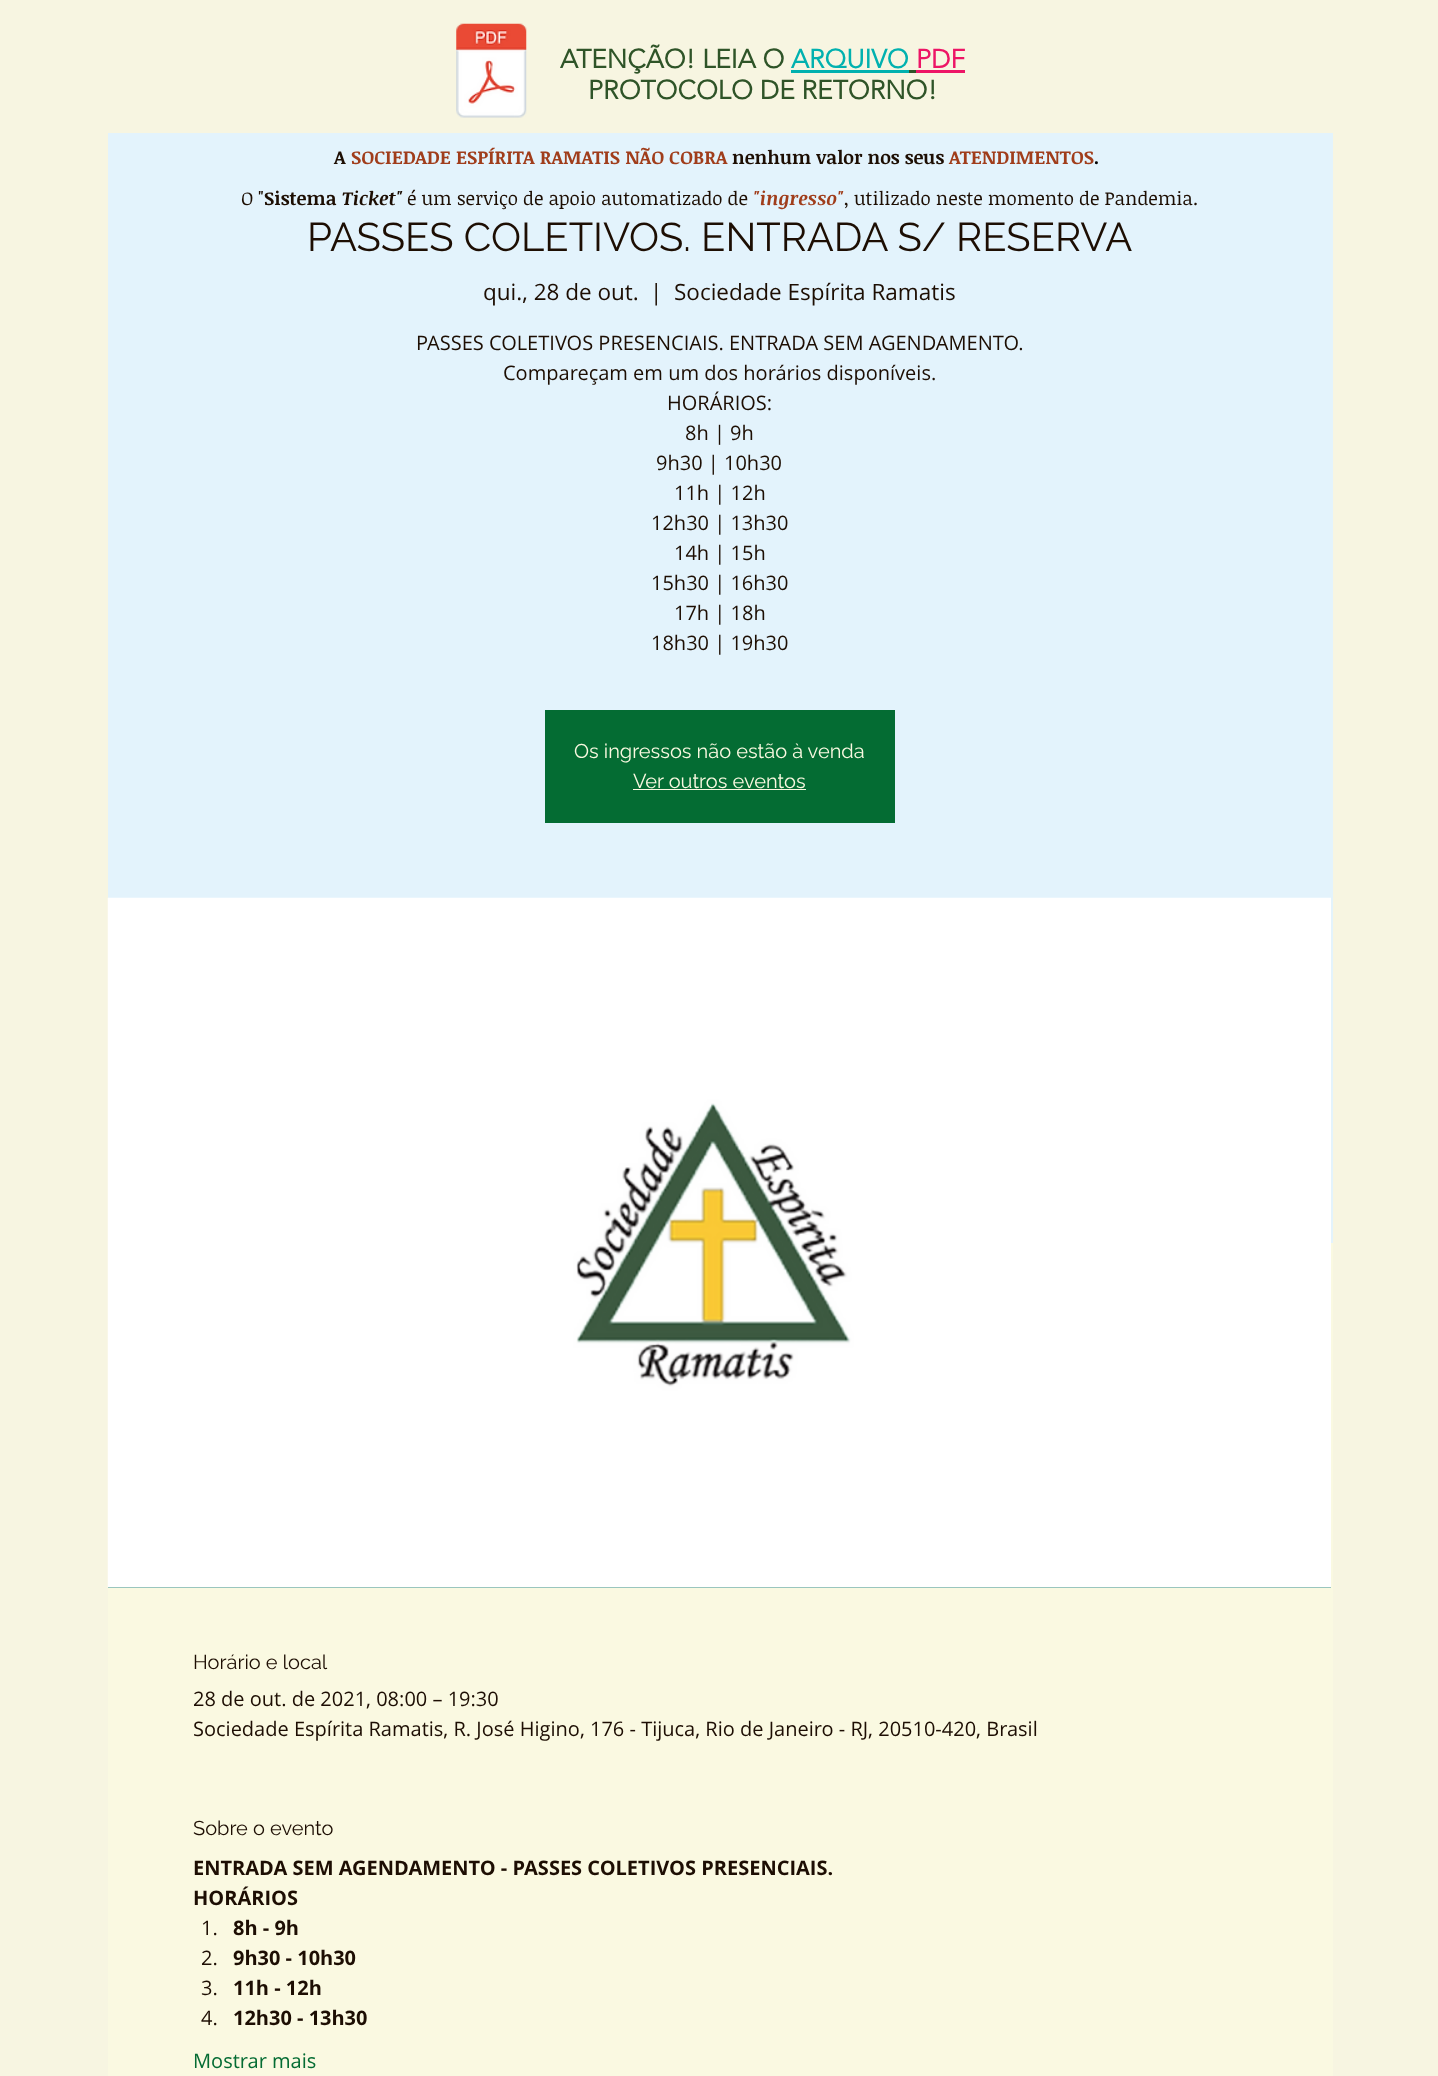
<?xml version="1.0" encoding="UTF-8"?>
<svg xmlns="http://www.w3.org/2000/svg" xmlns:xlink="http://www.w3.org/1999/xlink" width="1438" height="2076">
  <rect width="100%" height="100%" fill="#f7f5e1" />
  <image x="456" y="23" width="71" height="95" xlink:href="image1.png" />
  <rect x="791" y="70" width="118" height="3" fill="#01b1af" />
  <rect x="909" y="70" width="7" height="3" fill="#2f5428" />
  <rect x="916" y="70" width="49" height="3" fill="#ed1566" />
  <rect x="108" y="133" width="1225" height="1110" fill="#e3f3fc" />
  <rect x="545" y="710" width="350" height="113" fill="#046c33" />
  <rect x="633" y="789" width="173" height="1" fill="#faf9e1" />
  <rect x="108" y="1243" width="1225" height="833" fill="#faf9e1" />
  <rect x="108" y="1587" width="1223" height="1" fill="#78b3a9" />
  <image x="107" y="897" width="1224" height="691" xlink:href="image2.png" />
  <text x="560" y="68" style="font-family: 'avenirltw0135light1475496'; font-size: 26.25px; font-weight: bold; fill: #2f5428">ATENÇÃO! LEIA O</text>
  <text x="791" y="68" style="font-family: 'avenirltw0135light1475496'; font-size: 26.25px; font-weight: bold; fill: #01b1af">ARQUIVO</text>
  <text x="916" y="68" style="font-family: 'avenirltw0135light1475496'; font-size: 26.25px; font-weight: bold; fill: #ed1566">PDF</text>
  <text x="588" y="99" style="font-family: 'avenirltw0135light1475496'; font-size: 26.25px; font-weight: bold; fill: #2f5428">PROTOCOLO DE RETORNO!</text>
  <text x="334" y="164" style="font-family: Noticia Text; font-size: 18.75px; font-weight: bold; fill: #1d0e03">A</text>
  <text x="351" y="164" style="font-family: Noticia Text; font-size: 18.75px; font-weight: bold; fill: #a03d1b">SOCIEDADE ESPÍRITA RAMATIS NÃO COBRA</text>
  <text x="732" y="164" style="font-family: Noticia Text; font-size: 18.75px; font-weight: bold; fill: #1d0e03">nenhum valor nos seus</text>
  <text x="949" y="164" style="font-family: Noticia Text; font-size: 18.75px; font-weight: bold; fill: #a03d1b">ATENDIMENTOS</text>
  <text x="1094" y="164" style="font-family: Noticia Text; font-size: 18.75px; font-weight: bold; fill: #000000">.</text>
  <text x="241" y="205" style="font-family: Noticia Text; font-size: 18.75px; fill: #1d0e03">O "</text>
  <text x="264" y="205" style="font-family: Noticia Text; font-size: 18.75px; font-weight: bold; fill: #1d0e03">Sistema</text>
  <text x="342" y="205" style="font-family: Noticia Text; font-size: 18.75px; font-weight: bold; font-style: italic; fill: #1d0e03">Ticket"</text>
  <text x="407" y="205" style="font-family: Noticia Text; font-size: 18.75px; fill: #1d0e03">é um serviço de apoio automatizado de</text>
  <text x="753" y="205" style="font-family: Noticia Text; font-size: 18.75px; font-weight: bold; font-style: italic; fill: #a03d1b">"ingresso"</text>
  <text x="844" y="205" style="font-family: Noticia Text; font-size: 18.75px; fill: #1d0e03">, utilizado neste momento de Pandemia.</text>
  <text x="307" y="251" style="font-family: Raleway; font-size: 40px; fill: #1d0e03">PASSES COLETIVOS. ENTRADA S/ RESERVA</text>
  <text x="483" y="300" style="font-family: Open Sans; font-size: 22.5px; fill: #1d0e03">qui., 28 de out.</text>
  <text x="650" y="300" style="font-family: Open Sans; font-size: 22.5px; fill: #1d0e03">|</text>
  <text x="674" y="300" style="font-family: Open Sans; font-size: 22.5px; fill: #1d0e03">Sociedade Espírita Ramatis</text>
  <text x="416" y="350" style="font-family: Open Sans; font-size: 20px; fill: #1d0e03">PASSES COLETIVOS PRESENCIAIS. ENTRADA SEM AGENDAMENTO.</text>
  <text x="503" y="380" style="font-family: Open Sans; font-size: 20px; fill: #1d0e03">Compareçam em um dos horários disponíveis.</text>
  <text x="667" y="410" style="font-family: Open Sans; font-size: 20px; fill: #1d0e03">HORÁRIOS:</text>
  <text x="685" y="440" style="font-family: Open Sans; font-size: 20px; fill: #1d0e03">8h | 9h</text>
  <text x="656" y="470" style="font-family: Open Sans; font-size: 20px; fill: #1d0e03">9h30 | 10h30</text>
  <text x="674" y="500" style="font-family: Open Sans; font-size: 20px; fill: #1d0e03">11h | 12h</text>
  <text x="651" y="530" style="font-family: Open Sans; font-size: 20px; fill: #1d0e03">12h30 | 13h30</text>
  <text x="674" y="560" style="font-family: Open Sans; font-size: 20px; fill: #1d0e03">14h | 15h</text>
  <text x="651" y="590" style="font-family: Open Sans; font-size: 20px; fill: #1d0e03">15h30 | 16h30</text>
  <text x="674" y="620" style="font-family: Open Sans; font-size: 20px; fill: #1d0e03">17h | 18h</text>
  <text x="651" y="650" style="font-family: Open Sans; font-size: 20px; fill: #1d0e03">18h30 | 19h30</text>
  <text x="574" y="758" style="font-family: Raleway; font-size: 20px; fill: #faf9e1">Os ingressos não estão à venda</text>
  <text x="633" y="788" style="font-family: Raleway; font-size: 20px; fill: #faf9e1">Ver outros eventos</text>
  <text x="193" y="1669" style="font-family: Raleway; font-size: 20px; fill: #1d0e03">Horário e local</text>
  <text x="193" y="1706" style="font-family: Open Sans; font-size: 20px; fill: #1d0e03">28 de out. de 2021, 08:00 – 19:30</text>
  <text x="193" y="1736" style="font-family: Open Sans; font-size: 20px; fill: #1d0e03">Sociedade Espírita Ramatis, R. José Higino, 176 - Tijuca, Rio de Janeiro - RJ, 20510-420, Brasil</text>
  <text x="193" y="1835" style="font-family: Raleway; font-size: 20px; fill: #1d0e03">Sobre o evento</text>
  <text x="193" y="1875" style="font-family: Open Sans; font-size: 20px; font-weight: bold; fill: #1d0e03">ENTRADA SEM AGENDAMENTO - PASSES COLETIVOS PRESENCIAIS.</text>
  <text x="193" y="1905" style="font-family: Open Sans; font-size: 20px; font-weight: bold; fill: #1d0e03">HORÁRIOS</text>
  <text x="201" y="1935" style="font-family: Open Sans; font-size: 20px; fill: #1d0e03">1.</text>
  <text x="233" y="1935" style="font-family: Open Sans; font-size: 20px; font-weight: bold; fill: #1d0e03">8h - 9h</text>
  <text x="201" y="1965" style="font-family: Open Sans; font-size: 20px; fill: #1d0e03">2.</text>
  <text x="233" y="1965" style="font-family: Open Sans; font-size: 20px; font-weight: bold; fill: #1d0e03">9h30 - 10h30</text>
  <text x="201" y="1995" style="font-family: Open Sans; font-size: 20px; fill: #1d0e03">3.</text>
  <text x="233" y="1995" style="font-family: Open Sans; font-size: 20px; font-weight: bold; fill: #1d0e03">11h - 12h</text>
  <text x="201" y="2025" style="font-family: Open Sans; font-size: 20px; fill: #1d0e03">4.</text>
  <text x="233" y="2025" style="font-family: Open Sans; font-size: 20px; font-weight: bold; fill: #1d0e03">12h30 - 13h30</text>
  <text x="193" y="2068" style="font-family: Open Sans; font-size: 20px; fill: #046c33">Mostrar mais</text>
</svg>
